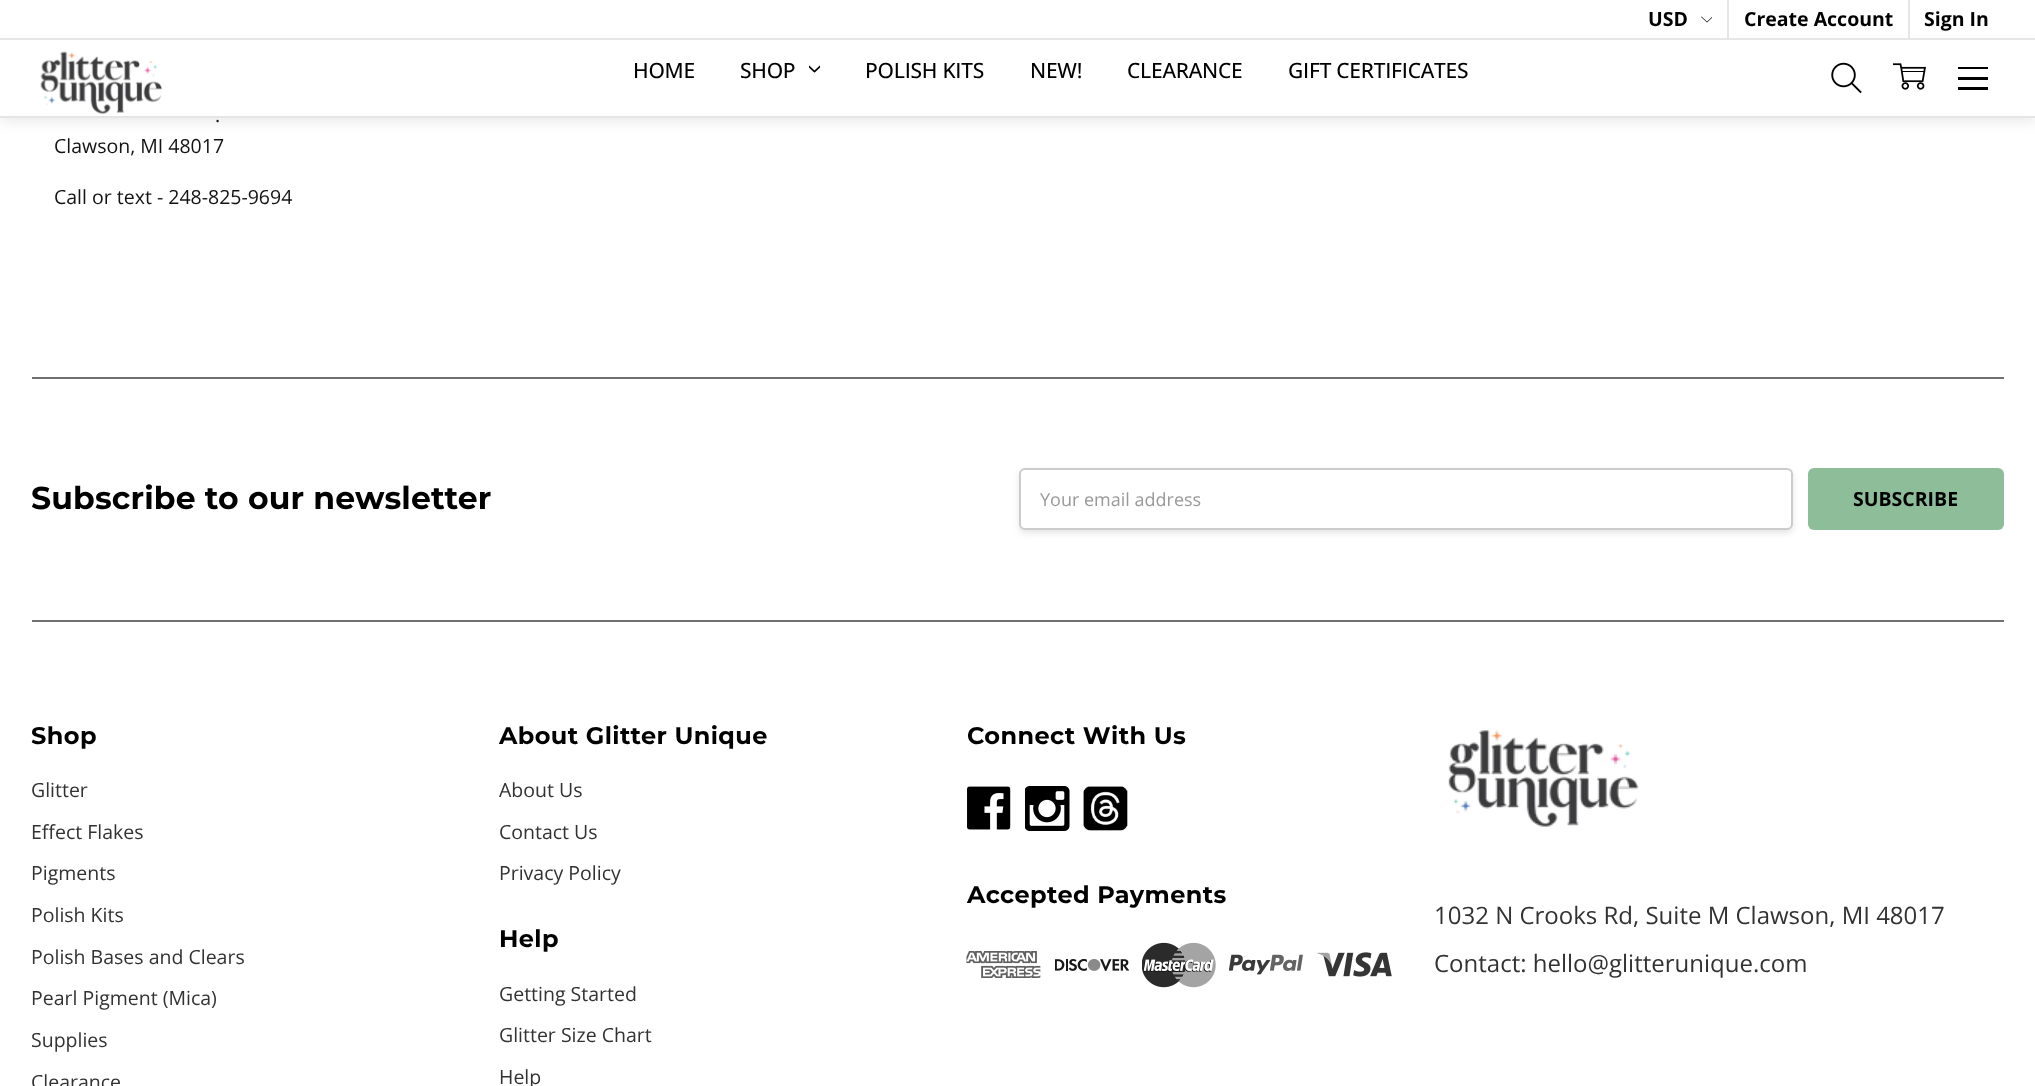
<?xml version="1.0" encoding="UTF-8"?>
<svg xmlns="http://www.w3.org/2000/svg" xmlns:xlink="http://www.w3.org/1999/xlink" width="2035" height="1086">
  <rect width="100%" height="100%" fill="#ffffff" />
  <rect y="3" width="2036" height="117" fill="#000000" fill-opacity="0.1" filter="blur(7.5px)" />
  <rect width="2035" height="116" fill="#ffffff" />
  <rect y="116" width="2035" height="2" fill="#e5e5e5" />
  <rect y="38" width="2035" height="2" fill="#e6e6e6" />
  <image x="1701" y="16" width="11" height="7" xlink:href="image1.png" />
  <rect x="1727" width="2" height="38" fill="#e6e6e6" />
  <rect x="1908" width="2" height="38" fill="#e6e6e6" />
  <image x="40" y="51" width="122" height="63" xlink:href="image2.png" />
  <image x="809" y="65" width="11" height="8" xlink:href="image3.png" />
  <image x="1831" y="62" width="31" height="32" xlink:href="image4.png" />
  <image x="1893" y="63" width="33" height="27" xlink:href="image5.png" />
  <rect x="1958" y="67" width="30" height="2" fill="#000000" />
  <rect x="1958" y="77" width="30" height="3" fill="#000000" />
  <rect x="1958" y="87" width="30" height="3" fill="#000000" />
  <rect x="32" y="377" width="1972" height="2" fill="#707070" />
  <rect x="32" y="620" width="1972" height="2" fill="#707070" />
  <rect x="1019" y="471" width="774" height="62" rx="6" fill="#000000" fill-opacity="0.1" filter="blur(3px)" />
  <rect x="1020" y="469" width="772" height="60" rx="5" fill="#ffffff" stroke="#cccccc" stroke-width="2" />
  <rect x="1808" y="468" width="196" height="62" rx="6" fill="#8ebd9a" />
  <image x="967" y="786" width="44" height="44" xlink:href="image6.png" />
  <image x="1025" y="786" width="45" height="45" xlink:href="image7.png" />
  <image x="1083" y="786" width="45" height="45" xlink:href="image8.png" />
  <image x="966" y="951" width="75" height="27" xlink:href="image9.png" />
  <image x="1055" y="958" width="74" height="13" xlink:href="image10.png" />
  <image x="1142" y="942" width="74" height="46" xlink:href="image11.png" />
  <image x="1229" y="954" width="74" height="21" xlink:href="image12.png" />
  <image x="1317" y="952" width="75" height="25" xlink:href="image13.png" />
  <image x="1448" y="730" width="191" height="97" xlink:href="image14.png" />
  <text x="1648" y="26" style="font-family: Open Sans; font-size: 19.5px; font-weight: bold; fill: #000000">USD</text>
  <text x="1744" y="26" style="font-family: Open Sans; font-size: 19.5px; font-weight: bold; fill: #000000">Create Account</text>
  <text x="1924" y="26" style="font-family: Open Sans; font-size: 19.5px; font-weight: bold; fill: #000000">Sign In</text>
  <text x="633" y="78" style="font-family: Open Sans; font-size: 21px; font-weight: 500; letter-spacing: -0.25px; fill: #000000">HOME</text>
  <text x="740" y="78" style="font-family: Open Sans; font-size: 21px; font-weight: 500; letter-spacing: -0.25px; fill: #000000">SHOP</text>
  <text x="865" y="78" style="font-family: Open Sans; font-size: 21px; font-weight: 500; letter-spacing: -0.25px; fill: #000000">POLISH KITS</text>
  <text x="1030" y="78" style="font-family: Open Sans; font-size: 21px; font-weight: 500; letter-spacing: -0.25px; fill: #000000">NEW!</text>
  <text x="1127" y="78" style="font-family: Open Sans; font-size: 21px; font-weight: 500; letter-spacing: -0.25px; fill: #000000">CLEARANCE</text>
  <text x="1288" y="78" style="font-family: Open Sans; font-size: 21px; font-weight: 500; letter-spacing: -0.25px; fill: #000000">GIFT CERTIFICATES</text>
  <text x="215" y="122" style="font-family: Open Sans; font-size: 19.5px; fill: #131313">.</text>
  <text x="54" y="153" style="font-family: Open Sans; font-size: 19.5px; fill: #131313">Clawson, MI 48017</text>
  <text x="54" y="204" style="font-family: Open Sans; font-size: 19.5px; fill: #131313">Call or text - 248-825-9694</text>
  <text x="31" y="509" style="font-family: Montserrat; font-size: 31.5px; font-weight: bold; letter-spacing: 0.15px; fill: #000000">Subscribe to our newsletter</text>
  <text x="1040" y="506" style="font-family: Open Sans; font-size: 18px; fill: #999999">Your email address</text>
  <text x="1853" y="506" style="font-family: Open Sans; font-size: 19.5px; font-weight: bold; fill: #000000">SUBSCRIBE</text>
  <text x="31" y="744" style="font-family: Montserrat; font-size: 24px; font-weight: bold; letter-spacing: 0.4px; fill: #000000">Shop</text>
  <text x="31" y="797" style="font-family: Open Sans; font-size: 19.5px; fill: #323232">Glitter</text>
  <text x="31" y="839" style="font-family: Open Sans; font-size: 19.5px; fill: #323232">Effect Flakes</text>
  <text x="31" y="880" style="font-family: Open Sans; font-size: 19.5px; fill: #323232">Pigments</text>
  <text x="31" y="922" style="font-family: Open Sans; font-size: 19.5px; fill: #323232">Polish Kits</text>
  <text x="31" y="964" style="font-family: Open Sans; font-size: 19.5px; fill: #323232">Polish Bases and Clears</text>
  <text x="31" y="1005" style="font-family: Open Sans; font-size: 19.5px; fill: #323232">Pearl Pigment (Mica)</text>
  <text x="31" y="1047" style="font-family: Open Sans; font-size: 19.5px; fill: #323232">Supplies</text>
  <text x="31" y="1089" style="font-family: Open Sans; font-size: 19.5px; fill: #323232">Clearance</text>
  <text x="499" y="744" style="font-family: Montserrat; font-size: 24px; font-weight: bold; letter-spacing: 0.4px; fill: #000000">About Glitter Unique</text>
  <text x="499" y="797" style="font-family: Open Sans; font-size: 19.5px; fill: #323232">About Us</text>
  <text x="499" y="839" style="font-family: Open Sans; font-size: 19.5px; fill: #323232">Contact Us</text>
  <text x="499" y="880" style="font-family: Open Sans; font-size: 19.5px; fill: #323232">Privacy Policy</text>
  <text x="499" y="947" style="font-family: Montserrat; font-size: 24px; font-weight: bold; letter-spacing: 0.4px; fill: #000000">Help</text>
  <text x="499" y="1001" style="font-family: Open Sans; font-size: 19.5px; fill: #323232">Getting Started</text>
  <text x="499" y="1042" style="font-family: Open Sans; font-size: 19.5px; fill: #323232">Glitter Size Chart</text>
  <text x="499" y="1084" style="font-family: Open Sans; font-size: 19.5px; fill: #323232">Help</text>
  <text x="967" y="744" style="font-family: Montserrat; font-size: 24px; font-weight: bold; letter-spacing: 0.4px; fill: #000000">Connect With Us</text>
  <text x="967" y="903" style="font-family: Montserrat; font-size: 24px; font-weight: bold; letter-spacing: 0.4px; fill: #000000">Accepted Payments</text>
  <text x="1434" y="924" style="font-family: Open Sans; font-size: 24px; fill: #323232">1032 N Crooks Rd, Suite M Clawson, MI 48017</text>
  <text x="1434" y="972" style="font-family: Open Sans; font-size: 24px; fill: #323232">Contact: hello@glitterunique.com</text>
</svg>
